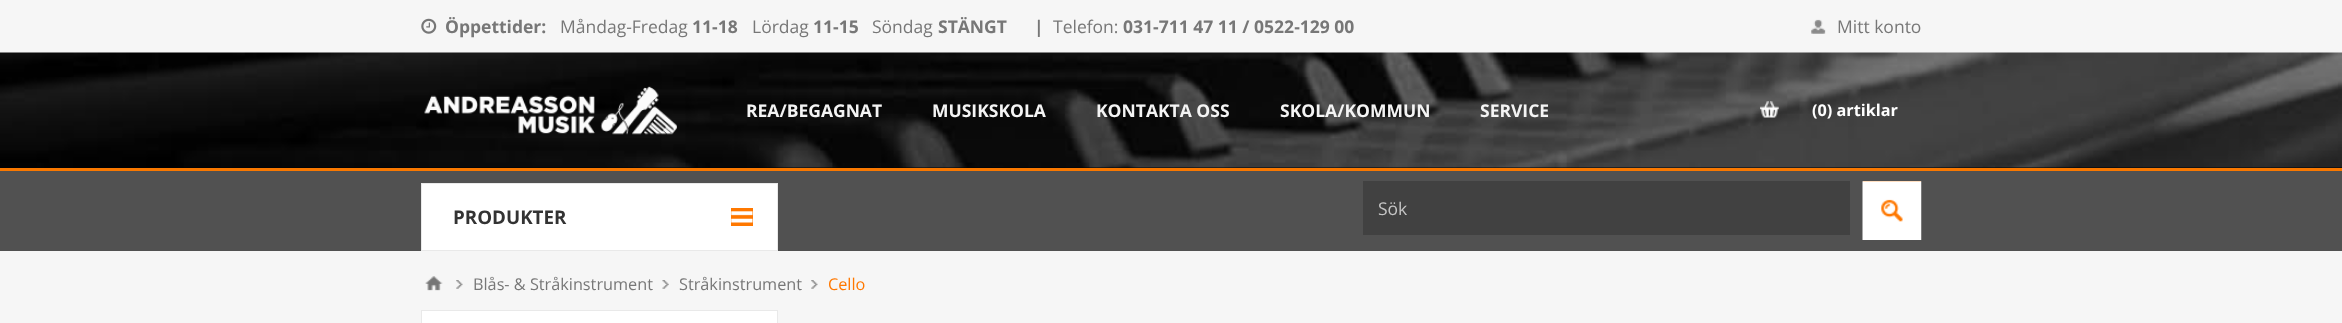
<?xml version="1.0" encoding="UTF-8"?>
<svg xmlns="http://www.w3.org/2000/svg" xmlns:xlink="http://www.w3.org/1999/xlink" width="2342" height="323">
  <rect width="100%" height="100%" fill="#f6f6f6" />
  <image x="421" y="18" width="16" height="16" xlink:href="image1.png" />
  <image x="1811" y="19" width="15" height="15" xlink:href="image2.png" />
  <rect y="167" width="2342" height="1" fill="#000000" />
  <image x="0" y="52" width="2342" height="116" xlink:href="image3.png" />
  <image x="424" y="86" width="253" height="49" xlink:href="image4.png" />
  <image x="1760" y="101" width="19" height="17" xlink:href="image5.png" />
  <rect y="171" width="2342" height="80" fill="#515151" />
  <rect y="168" width="2342" height="3" fill="#f97800" />
  <rect x="1363" y="181" width="487" height="54" fill="#414141" />
  <rect x="1863" y="181" width="58" height="41" fill="#ff7800" />
  <image x="1862" y="181" width="60" height="59" xlink:href="image6.png" />
  <rect x="421.5" y="183.5" width="356" height="67" fill="#ffffff" stroke="#e9e9e9" />
  <rect x="731" y="208" width="22" height="18" fill="#ff7800" />
  <image x="731" y="211" width="22" height="12" xlink:href="image7.png" />
  <image x="425" y="276" width="18" height="15" xlink:href="image8.png" />
  <image x="456" y="280" width="7" height="9" xlink:href="image9.png" />
  <image x="662" y="280" width="7" height="9" xlink:href="image10.png" />
  <image x="811" y="280" width="7" height="9" xlink:href="image9.png" />
  <rect x="421.5" y="310.5" width="356" height="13" fill="#ffffff" stroke="#e9e9e9" />
  <text x="445" y="33" style="font-family: Open Sans; font-size: 17.5px; font-weight: bold; fill: #777777">Öppettider:</text>
  <text x="560" y="33" style="font-family: Open Sans; font-size: 17.5px; fill: #777777">Måndag-Fredag</text>
  <text x="692" y="33" style="font-family: Open Sans; font-size: 17.5px; font-weight: bold; fill: #777777">11-18</text>
  <text x="752" y="33" style="font-family: Open Sans; font-size: 17.5px; fill: #777777">Lördag</text>
  <text x="813" y="33" style="font-family: Open Sans; font-size: 17.5px; font-weight: bold; fill: #777777">11-15</text>
  <text x="872" y="33" style="font-family: Open Sans; font-size: 17.5px; fill: #777777">Söndag</text>
  <text x="938" y="33" style="font-family: Open Sans; font-size: 17.5px; font-weight: bold; fill: #777777">STÄNGT</text>
  <text x="1034" y="33" style="font-family: Open Sans; font-size: 17.5px; font-weight: bold; fill: #777777">|</text>
  <text x="1053" y="33" style="font-family: Open Sans; font-size: 17.5px; fill: #777777">Telefon:</text>
  <text x="1123" y="33" style="font-family: Open Sans; font-size: 17.5px; font-weight: bold; fill: #777777">031-711 47 11 / 0522-129 00</text>
  <text x="1837" y="33" style="font-family: Open Sans; font-size: 17.5px; fill: #777777">Mitt konto</text>
  <text x="746" y="117" style="font-family: Open Sans; font-size: 17.5px; font-weight: bold; fill: #f4f4f4">REA/BEGAGNAT</text>
  <text x="932" y="117" style="font-family: Open Sans; font-size: 17.5px; font-weight: bold; fill: #f4f4f4">MUSIKSKOLA</text>
  <text x="1096" y="117" style="font-family: Open Sans; font-size: 17.5px; font-weight: bold; fill: #f4f4f4">KONTAKTA OSS</text>
  <text x="1280" y="117" style="font-family: Open Sans; font-size: 17.5px; font-weight: bold; fill: #f4f4f4">SKOLA/KOMMUN</text>
  <text x="1480" y="117" style="font-family: Open Sans; font-size: 17.5px; font-weight: bold; fill: #f4f4f4">SERVICE</text>
  <text x="1812" y="116" style="font-family: Open Sans; font-size: 16.25px; font-weight: bold; fill: #ffffff">(0) artiklar</text>
  <text x="1378" y="215" style="font-family: Open Sans; font-size: 17.5px; fill: #c6c6c6">Sök</text>
  <text x="453" y="224" style="font-family: Open Sans; font-size: 18.75px; font-weight: bold; fill: #333333">PRODUKTER</text>
  <text x="473" y="290" style="font-family: Open Sans; font-size: 16.25px; fill: #777777">Blås- &amp; Stråkinstrument</text>
  <text x="679" y="290" style="font-family: Open Sans; font-size: 16.25px; fill: #777777">Stråkinstrument</text>
  <text x="828" y="290" style="font-family: Open Sans; font-size: 16.25px; fill: #ff7800">Cello</text>
</svg>
